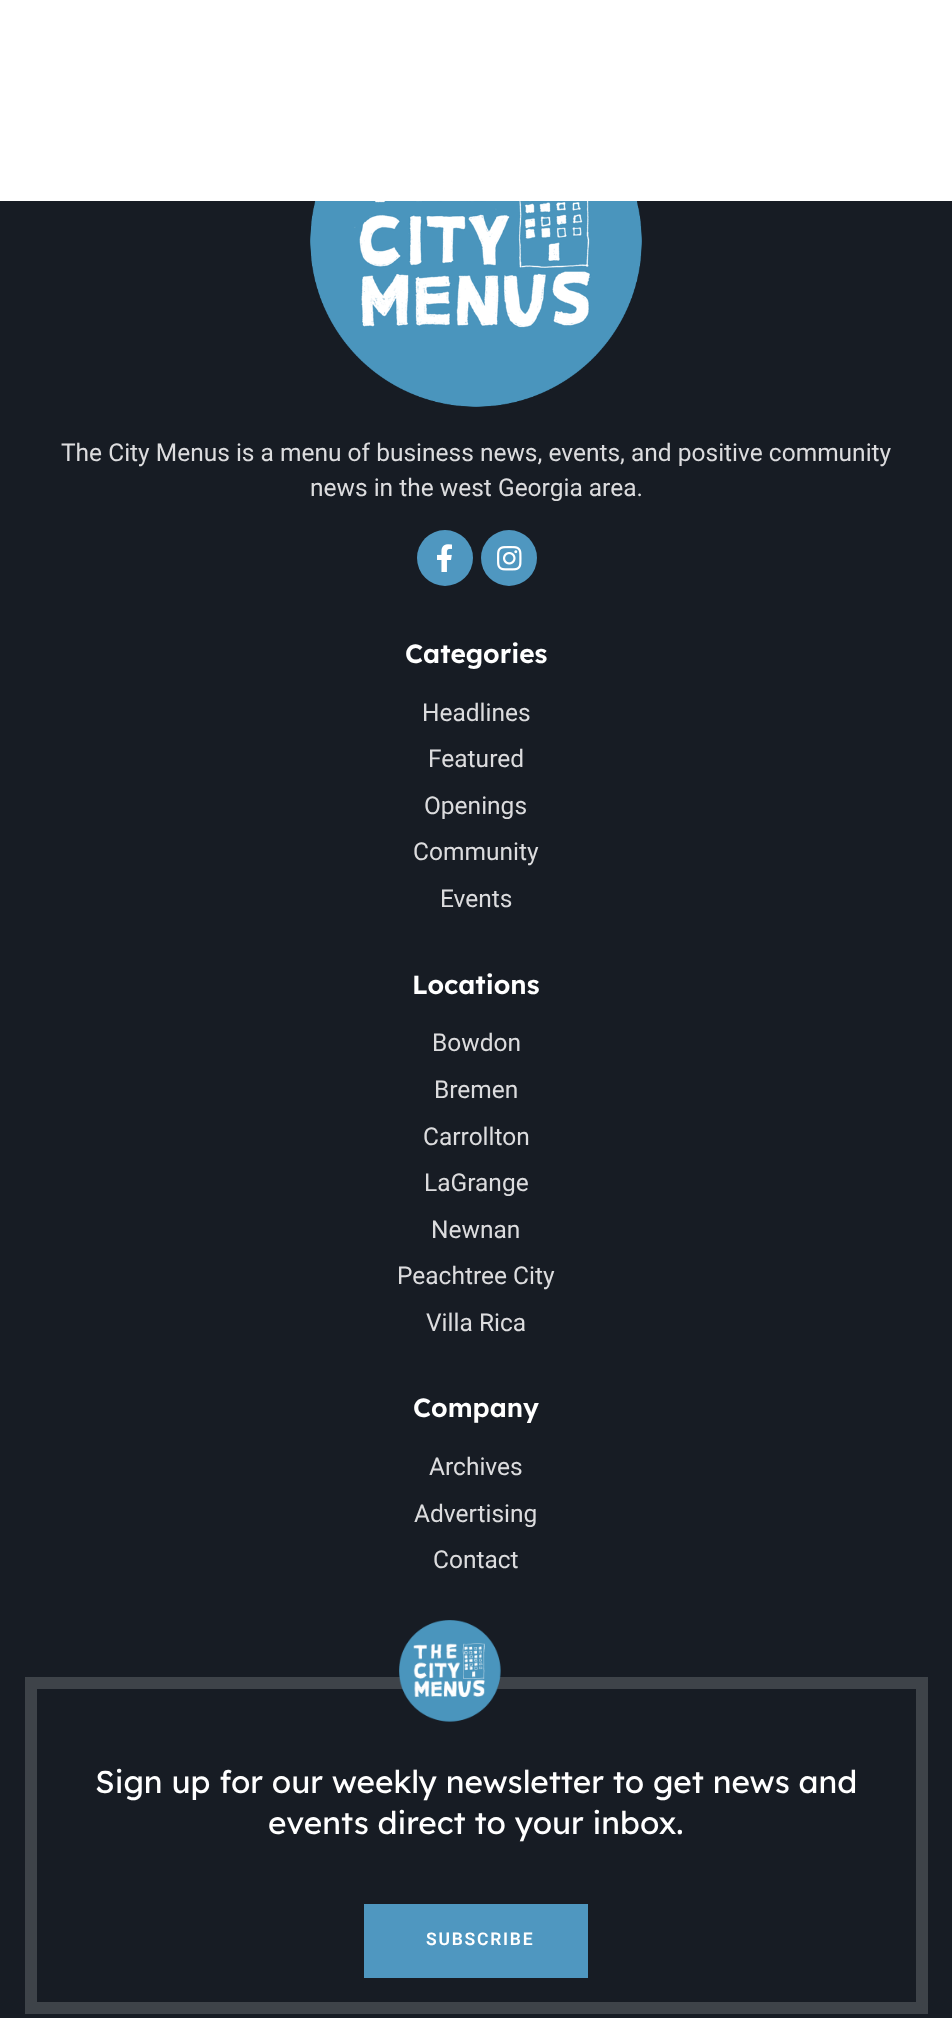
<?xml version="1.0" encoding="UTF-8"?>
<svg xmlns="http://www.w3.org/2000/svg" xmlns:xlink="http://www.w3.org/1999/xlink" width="952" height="2018">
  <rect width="100%" height="100%" fill="#171c24" />
  <rect width="952" height="201" fill="#ffffff" />
  <image x="310" y="201" width="332" height="206" xlink:href="image1.png" />
  <circle cx="445" cy="558" r="28" fill="#4f97c0" />
  <image x="437" y="544" width="15" height="28" xlink:href="image2.png" />
  <circle cx="509" cy="558" r="28" fill="#4f97c0" />
  <image x="497" y="546" width="25" height="25" xlink:href="image3.png" />
  <rect x="31" y="1683" width="891" height="325" fill="none" stroke="#3e4349" stroke-width="12" />
  <image x="399" y="1620" width="102" height="102" xlink:href="image4.png" />
  <rect x="364" y="1904" width="224" height="74" fill="#4f97c0" />
  <text x="61" y="461" style="font-family: Roboto; font-size: 24.5px; fill: #dcdcde">The City Menus is a menu of business news, events, and positive community</text>
  <text x="310" y="496" style="font-family: Roboto; font-size: 24.5px; fill: #dcdcde">news in the west Georgia area.</text>
  <text x="405" y="663" style="font-family: Lexend; font-size: 26.25px; font-weight: 600; fill: #ffffff">Categories</text>
  <text x="422" y="721" style="font-family: Roboto; font-size: 24.5px; fill: #dcdcde">Headlines</text>
  <text x="428" y="767" style="font-family: Roboto; font-size: 24.5px; fill: #dcdcde">Featured</text>
  <text x="424" y="814" style="font-family: Roboto; font-size: 24.5px; fill: #dcdcde">Openings</text>
  <text x="413" y="860" style="font-family: Roboto; font-size: 24.5px; fill: #dcdcde">Community</text>
  <text x="440" y="907" style="font-family: Roboto; font-size: 24.5px; fill: #dcdcde">Events</text>
  <text x="412" y="994" style="font-family: Lexend; font-size: 26.25px; font-weight: 600; fill: #ffffff">Locations</text>
  <text x="432" y="1051" style="font-family: Roboto; font-size: 24.5px; fill: #dcdcde">Bowdon</text>
  <text x="434" y="1098" style="font-family: Roboto; font-size: 24.5px; fill: #dcdcde">Bremen</text>
  <text x="423" y="1145" style="font-family: Roboto; font-size: 24.5px; fill: #dcdcde">Carrollton</text>
  <text x="424" y="1191" style="font-family: Roboto; font-size: 24.5px; fill: #dcdcde">LaGrange</text>
  <text x="431" y="1238" style="font-family: Roboto; font-size: 24.5px; fill: #dcdcde">Newnan</text>
  <text x="397" y="1284" style="font-family: Roboto; font-size: 24.5px; fill: #dcdcde">Peachtree City</text>
  <text x="426" y="1331" style="font-family: Roboto; font-size: 24.5px; fill: #dcdcde">Villa Rica</text>
  <text x="413" y="1417" style="font-family: Lexend; font-size: 26.25px; font-weight: 600; fill: #ffffff">Company</text>
  <text x="429" y="1475" style="font-family: Roboto; font-size: 24.5px; fill: #dcdcde">Archives</text>
  <text x="414" y="1522" style="font-family: Roboto; font-size: 24.5px; fill: #dcdcde">Advertising</text>
  <text x="433" y="1568" style="font-family: Roboto; font-size: 24.5px; fill: #dcdcde">Contact</text>
  <text x="95" y="1793" style="font-family: Lexend; font-size: 31.5px; fill: #ffffff">Sign up for our weekly newsletter to get news and</text>
  <text x="268" y="1834" style="font-family: Lexend; font-size: 31.5px; fill: #ffffff">events direct to your inbox.</text>
  <text x="426" y="1945" style="font-family: Roboto; font-size: 17.5px; font-weight: 600; letter-spacing: 1.75px; fill: #ffffff">SUBSCRIBE</text>
</svg>
